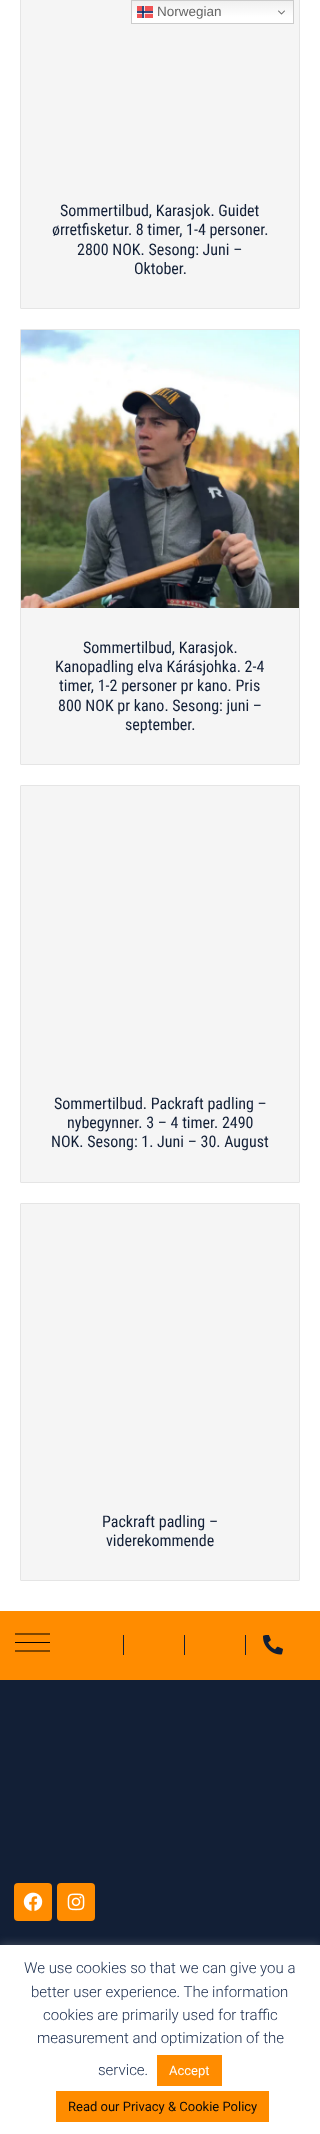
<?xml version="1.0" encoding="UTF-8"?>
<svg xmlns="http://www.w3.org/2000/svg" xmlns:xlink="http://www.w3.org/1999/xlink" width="320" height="2134">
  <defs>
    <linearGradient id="g1" gradientUnits="userSpaceOnUse" x1="213" y1="0" x2="213" y2="24"><stop offset="0" stop-color="#efefef" /><stop offset="0.7" stop-color="#ffffff" /></linearGradient>
  </defs>
  <rect width="100%" height="100%" fill="#ffffff" />
  <rect x="20.5" y="-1.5" width="279" height="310" rx="0.5" fill="#f5f5f5" stroke="#e5e5e5" />
  <rect x="132" y="1" width="161" height="22" fill="url(#g1)" />
  <rect x="131.5" y="0.5" width="162" height="23" fill="none" stroke="#cccccc" />
  <image x="137" y="6" width="16" height="12" xlink:href="image1.png" />
  <image x="278" y="10" width="7" height="5" xlink:href="image2.png" />
  <rect x="20.5" y="329.5" width="279" height="435" rx="0.5" fill="#f5f5f5" stroke="#e5e5e5" />
  <image x="21" y="330" width="278" height="278" xlink:href="image3.png" />
  <rect x="20.5" y="785.5" width="279" height="397" rx="0.5" fill="#f5f5f5" stroke="#e5e5e5" />
  <rect x="20.5" y="1203.5" width="279" height="377" rx="0.5" fill="#f5f5f5" stroke="#e5e5e5" />
  <rect y="1611" width="320" height="69" fill="#ff8c00" />
  <path d="M 15 1634 h 35" fill="none" stroke="#000000" stroke-width="1.1" />
  <rect x="15" y="1642" width="35" height="1" fill="#000000" />
  <path d="M 15 1651 h 35" fill="none" stroke="#000000" stroke-width="1.1" />
  <rect x="123" y="1635" width="1" height="20" fill="#121f36" />
  <rect x="184" y="1635" width="1" height="20" fill="#121f36" />
  <rect x="245" y="1635" width="1" height="20" fill="#121f36" />
  <image x="263" y="1635" width="20" height="20" xlink:href="image4.png" />
  <rect y="1680" width="320" height="265" fill="#121f36" />
  <rect x="14" y="1883" width="38" height="38" rx="4" fill="#ff8c00" />
  <image x="23" y="1892" width="20" height="19" xlink:href="image5.png" />
  <rect x="57" y="1883" width="38" height="38" rx="4" fill="#ff8c00" />
  <image x="67" y="1893" width="18" height="18" xlink:href="image6.png" />
  <rect y="1944" width="320" height="189" fill="#acabab" fill-opacity="0.3" filter="blur(5px)" />
  <rect y="1945" width="320" height="189" fill="#ffffff" />
  <rect x="157" y="2055" width="65" height="31" fill="#ff8c00" />
  <rect x="56" y="2091" width="213" height="31" fill="#ff8c00" />
  <text x="157" y="16" style="font-family: Liberation Sans; font-size: 13.5px; fill: #666666">Norwegian</text>
  <text x="60" y="216" style="font-family: Roboto Condensed; font-size: 16px; fill: #121f36">Sommertilbud, Karasjok. Guidet</text>
  <text x="52" y="235" style="font-family: Roboto Condensed; font-size: 16px; fill: #121f36">ørretfisketur. 8 timer, 1-4 personer.</text>
  <text x="77" y="255" style="font-family: Roboto Condensed; font-size: 16px; fill: #121f36">2800 NOK. Sesong: Juni –</text>
  <text x="134" y="274" style="font-family: Roboto Condensed; font-size: 16px; fill: #121f36">Oktober.</text>
  <text x="83" y="653" style="font-family: Roboto Condensed; font-size: 16px; fill: #121f36">Sommertilbud, Karasjok.</text>
  <text x="55" y="672" style="font-family: Roboto Condensed; font-size: 16px; fill: #121f36">Kanopadling elva Kárásjohka. 2-4</text>
  <text x="59" y="691" style="font-family: Roboto Condensed; font-size: 16px; fill: #121f36">timer, 1-2 personer pr kano. Pris</text>
  <text x="58" y="711" style="font-family: Roboto Condensed; font-size: 16px; fill: #121f36">800 NOK pr kano. Sesong: juni –</text>
  <text x="125" y="730" style="font-family: Roboto Condensed; font-size: 16px; fill: #121f36">september.</text>
  <text x="54" y="1109" style="font-family: Roboto Condensed; font-size: 16px; fill: #121f36">Sommertilbud. Packraft padling –</text>
  <text x="67" y="1128" style="font-family: Roboto Condensed; font-size: 16px; fill: #121f36">nybegynner. 3 – 4 timer. 2490</text>
  <text x="51" y="1147" style="font-family: Roboto Condensed; font-size: 16px; fill: #121f36">NOK. Sesong: 1. Juni – 30. August</text>
  <text x="102" y="1527" style="font-family: Roboto Condensed; font-size: 16px; fill: #121f36">Packraft padling –</text>
  <text x="106" y="1546" style="font-family: Roboto Condensed; font-size: 16px; fill: #121f36">viderekommende</text>
  <text x="24" y="1973" style="font-family: Roboto; font-size: 15px; font-weight: 300; fill: #16294a">We use cookies so that we can give you a</text>
  <text x="31" y="1997" style="font-family: Roboto; font-size: 15px; font-weight: 300; fill: #16294a">better user experience. The information</text>
  <text x="43" y="2020" style="font-family: Roboto; font-size: 15px; font-weight: 300; fill: #16294a">cookies are primarily used for traffic</text>
  <text x="37" y="2043" style="font-family: Roboto; font-size: 15px; font-weight: 300; fill: #16294a">measurement and optimization of the</text>
  <text x="98" y="2075" style="font-family: Roboto; font-size: 15px; font-weight: 300; fill: #16294a">service.</text>
  <text x="169" y="2075" style="font-family: Roboto; font-size: 13px; fill: #ffffff">Accept</text>
  <text x="68" y="2111" style="font-family: Roboto; font-size: 13px; fill: #0a0a0a">Read our Privacy &amp; Cookie Policy</text>
</svg>
